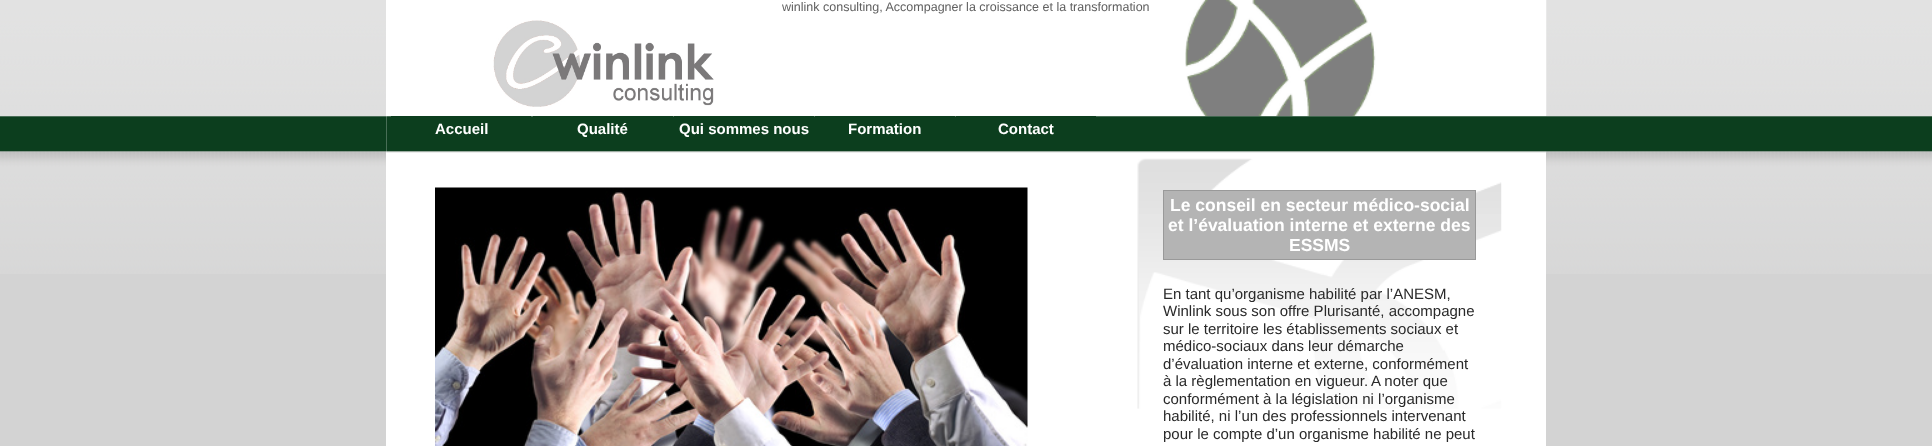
<?xml version="1.0" encoding="UTF-8"?>
<svg xmlns="http://www.w3.org/2000/svg" xmlns:xlink="http://www.w3.org/1999/xlink" width="1932" height="446">
  <rect width="100%" height="100%" fill="#d3d3d3" />
  <image x="0" y="0" width="1932" height="274" xlink:href="image1.png" />
  <rect x="386" width="1160" height="446" fill="#ffffff" />
  <image x="1185" y="0" width="362" height="117" xlink:href="image2.png" />
  <image x="493" y="20" width="221" height="87" xlink:href="image3.png" />
  <image x="386" y="116" width="1161" height="37" xlink:href="image4.png" />
  <rect x="391" y="116" width="140" height="1" fill="#0c3e1e" />
  <rect x="533" y="116" width="140" height="1" fill="#0c3e1e" />
  <rect x="674" y="116" width="140" height="1" fill="#0c3e1e" />
  <rect x="815" y="116" width="140" height="1" fill="#0c3e1e" />
  <rect x="956" y="116" width="140" height="1" fill="#0c3e1e" />
  <image x="435" y="187" width="593" height="259" xlink:href="image5.png" />
  <image x="1137" y="158" width="365" height="251" xlink:href="image6.png" />
  <rect x="1163.5" y="190.5" width="312" height="69" fill="#b4b4b4" stroke="#999999" />
  <text x="782" y="11" style="font-family: Liberation Sans; font-size: 12.5px; fill: #606060">winlink consulting, Accompagner la croissance et la transformation</text>
  <text x="435" y="134" style="font-family: Liberation Sans; font-size: 15px; font-weight: bold; fill: #ffffff">Accueil</text>
  <text x="577" y="134" style="font-family: Liberation Sans; font-size: 15px; font-weight: bold; fill: #ffffff">Qualité</text>
  <text x="679" y="134" style="font-family: Liberation Sans; font-size: 15px; font-weight: bold; fill: #ffffff">Qui sommes nous</text>
  <text x="848" y="134" style="font-family: Liberation Sans; font-size: 15px; font-weight: bold; fill: #ffffff">Formation</text>
  <text x="998" y="134" style="font-family: Liberation Sans; font-size: 15px; font-weight: bold; fill: #ffffff">Contact</text>
  <text x="1170" y="211" style="font-family: Liberation Sans; font-size: 17.5px; font-weight: bold; fill: #ffffff">Le conseil en secteur médico-social</text>
  <text x="1168" y="231" style="font-family: Liberation Sans; font-size: 17.5px; font-weight: bold; fill: #ffffff">et l’évaluation interne et externe des</text>
  <text x="1289" y="251" style="font-family: Liberation Sans; font-size: 17.5px; font-weight: bold; fill: #ffffff">ESSMS</text>
  <text x="1163" y="299" style="font-family: Liberation Sans; font-size: 15px; fill: #292929">En tant qu’organisme habilité par l’ANESM,</text>
  <text x="1163" y="316" style="font-family: Liberation Sans; font-size: 15px; fill: #292929">Winlink sous son offre Plurisanté, accompagne</text>
  <text x="1163" y="334" style="font-family: Liberation Sans; font-size: 15px; fill: #292929">sur le territoire les établissements sociaux et</text>
  <text x="1163" y="351" style="font-family: Liberation Sans; font-size: 15px; fill: #292929">médico-sociaux dans leur démarche</text>
  <text x="1163" y="369" style="font-family: Liberation Sans; font-size: 15px; fill: #292929">d’évaluation interne et externe, conformément</text>
  <text x="1163" y="386" style="font-family: Liberation Sans; font-size: 15px; fill: #292929">à la règlementation en vigueur.</text>
  <text x="1371" y="386" style="font-family: Liberation Sans; font-size: 15px; fill: #292929">A noter que</text>
  <text x="1163" y="404" style="font-family: Liberation Sans; font-size: 15px; fill: #292929">conformément à la législation ni l’organisme</text>
  <text x="1163" y="421" style="font-family: Liberation Sans; font-size: 15px; fill: #292929">habilité, ni l’un des professionnels intervenant</text>
  <text x="1163" y="439" style="font-family: Liberation Sans; font-size: 15px; fill: #292929">pour le compte d’un organisme habilité ne peut</text>
</svg>
